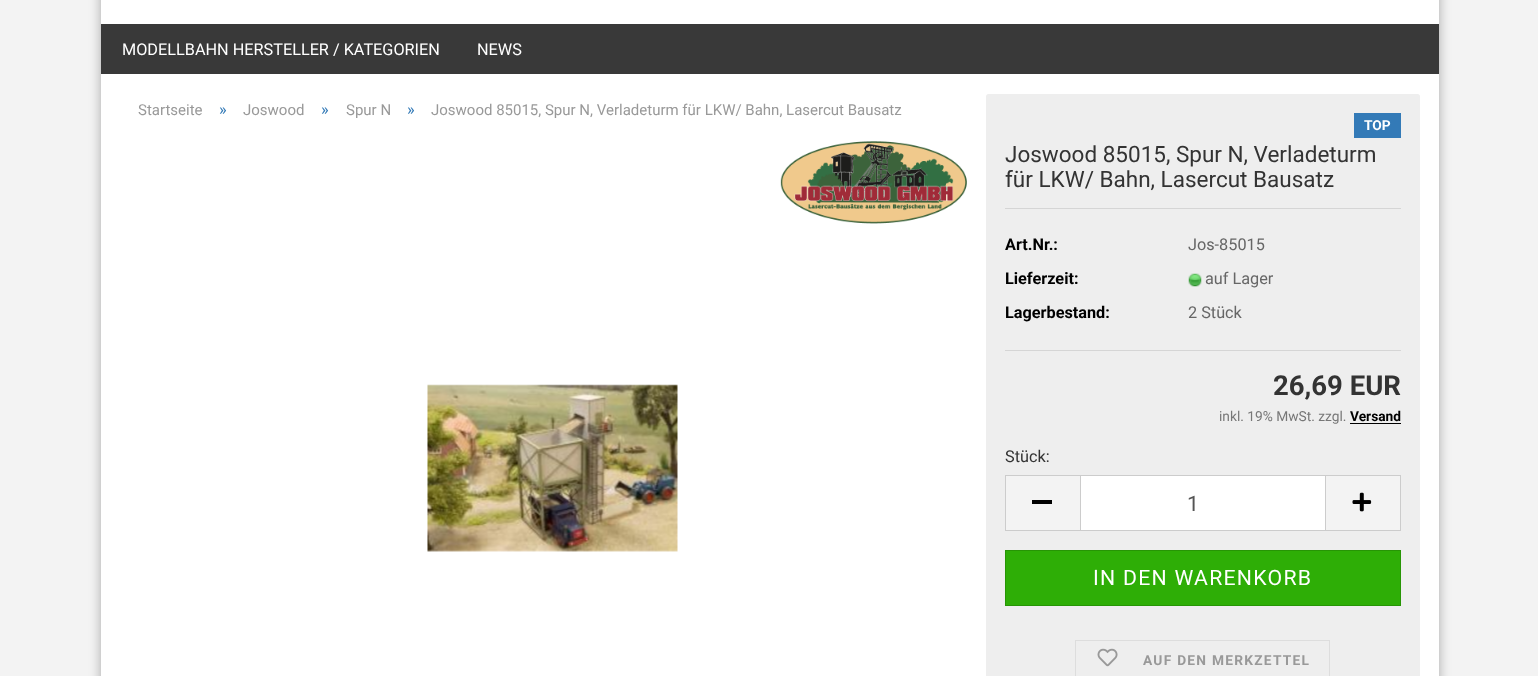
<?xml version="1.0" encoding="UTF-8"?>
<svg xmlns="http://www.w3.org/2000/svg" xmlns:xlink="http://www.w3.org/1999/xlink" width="1538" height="676">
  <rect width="100%" height="100%" fill="#f3f3f3" />
  <rect x="101" y="-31" width="1338" height="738" rx="13" fill="#000000" fill-opacity="0.3" filter="blur(6px)" />
  <rect x="101" width="1338" height="676" fill="#ffffff" />
  <rect x="101" y="24" width="1338" height="50" fill="#393939" />
  <image x="780" y="141" width="187" height="83" xlink:href="image1.png" />
  <image x="427" y="384" width="251" height="168" xlink:href="image2.png" />
  <rect x="986" y="94" width="434" height="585" rx="2.5" fill="#eeeeee" />
  <rect x="1354" y="113" width="47" height="25" fill="#337ab7" />
  <rect x="1005" y="208" width="396" height="1" fill="#d5d5d5" />
  <rect x="1005" y="350" width="396" height="1" fill="#d5d5d5" />
  <image x="1188" y="273" width="14" height="14" xlink:href="image3.png" />
  <rect x="1350" y="423" width="51" height="1" fill="#000000" />
  <rect x="1006" y="476" width="74" height="54" fill="#f3f3f3" />
  <rect x="1005" y="475" width="75" height="1" fill="#cccccc" />
  <rect x="1005" y="530" width="75" height="1" fill="#cccccc" />
  <rect x="1005" y="475" width="1" height="56" fill="#cccccc" />
  <rect x="1032" y="500" width="20" height="4" fill="#000000" />
  <rect x="1080.5" y="475.5" width="245" height="55" fill="#ffffff" stroke="#cccccc" />
  <rect x="1326" y="476" width="74" height="54" fill="#f3f3f3" />
  <rect x="1326" y="475" width="75" height="1" fill="#cccccc" />
  <rect x="1400" y="475" width="1" height="56" fill="#cccccc" />
  <rect x="1326" y="530" width="75" height="1" fill="#cccccc" />
  <image x="1352" y="492" width="20" height="20" xlink:href="image4.png" />
  <rect x="1005.5" y="550.5" width="395" height="55" fill="#2eae06" stroke="#279505" />
  <rect x="1075.5" y="640.5" width="254" height="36" fill="none" stroke="#dddddd" />
  <image x="1097" y="648" width="21" height="19" xlink:href="image5.png" />
  <text x="122" y="55" style="font-family: Roboto; font-size: 16.25px; fill: #ffffff">MODELLBAHN HERSTELLER / KATEGORIEN</text>
  <text x="477" y="55" style="font-family: Roboto; font-size: 16.25px; fill: #ffffff">NEWS</text>
  <text x="138" y="115" style="font-family: Roboto; font-size: 15px; fill: #999999">Startseite</text>
  <text x="219" y="115" style="font-family: Roboto; font-size: 16.25px; fill: #337ab7">»</text>
  <text x="243" y="115" style="font-family: Roboto; font-size: 15px; fill: #999999">Joswood</text>
  <text x="321" y="115" style="font-family: Roboto; font-size: 16.25px; fill: #337ab7">»</text>
  <text x="346" y="115" style="font-family: Roboto; font-size: 15px; fill: #999999">Spur N</text>
  <text x="407" y="115" style="font-family: Roboto; font-size: 16.25px; fill: #337ab7">»</text>
  <text x="431" y="115" style="font-family: Roboto; font-size: 15px; fill: #999999">Joswood 85015, Spur N, Verladeturm für LKW/ Bahn, Lasercut Bausatz</text>
  <text x="1364" y="130" style="font-family: Roboto; font-size: 13.75px; font-weight: bold; fill: #ffffff">TOP</text>
  <text x="1005" y="162" style="font-family: Roboto; font-size: 22.5px; fill: #333333">Joswood 85015, Spur N, Verladeturm</text>
  <text x="1005" y="187" style="font-family: Roboto; font-size: 22.5px; fill: #333333">für LKW/ Bahn, Lasercut Bausatz</text>
  <text x="1005" y="250" style="font-family: Roboto; font-size: 16.25px; font-weight: bold; fill: #000000">Art.Nr.:</text>
  <text x="1188" y="250" style="font-family: Roboto; font-size: 16.25px; fill: #666666">Jos-85015</text>
  <text x="1005" y="284" style="font-family: Roboto; font-size: 16.25px; font-weight: bold; fill: #000000">Lieferzeit:</text>
  <text x="1205" y="284" style="font-family: Roboto; font-size: 16.25px; fill: #666666">auf Lager</text>
  <text x="1005" y="318" style="font-family: Roboto; font-size: 16.25px; font-weight: bold; fill: #000000">Lagerbestand:</text>
  <text x="1188" y="318" style="font-family: Roboto; font-size: 16.25px; fill: #666666">2 Stück</text>
  <text x="1273" y="395" style="font-family: Roboto; font-size: 27.5px; font-weight: bold; fill: #333333">26,69 EUR</text>
  <text x="1219" y="421" style="font-family: Roboto; font-size: 13.75px; fill: #777777">inkl. 19% MwSt. zzgl.</text>
  <text x="1350" y="421" style="font-family: Roboto; font-size: 13.75px; font-weight: bold; fill: #000000">Versand</text>
  <text x="1005" y="462" style="font-family: Roboto; font-size: 16.25px; fill: #333333">Stück:</text>
  <text x="1187" y="511" style="font-family: Roboto; font-size: 21.25px; fill: #555555">1</text>
  <text x="1093" y="585" style="font-family: Roboto; font-size: 21.25px; letter-spacing: 1.25px; fill: #ffffff">IN DEN WARENKORB</text>
  <text x="1143" y="665" style="font-family: Roboto; font-size: 13.75px; font-weight: bold; letter-spacing: 1.25px; fill: #999999">AUF DEN MERKZETTEL</text>
</svg>
